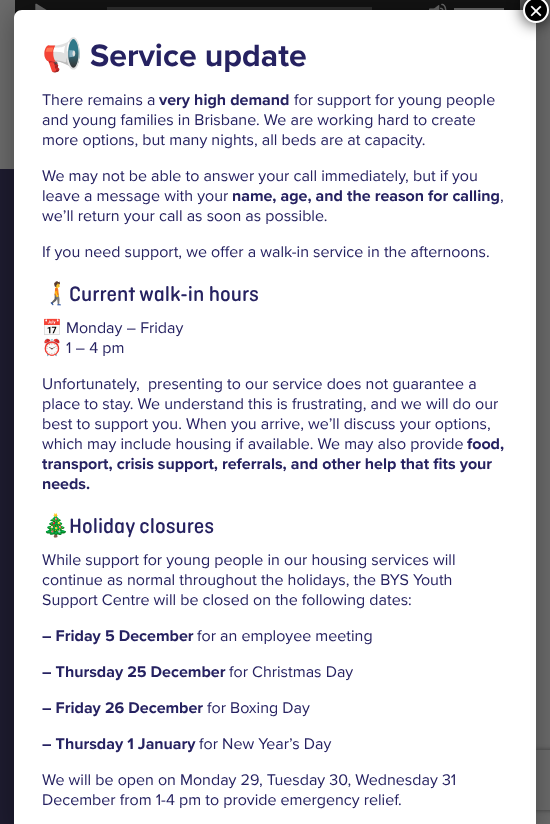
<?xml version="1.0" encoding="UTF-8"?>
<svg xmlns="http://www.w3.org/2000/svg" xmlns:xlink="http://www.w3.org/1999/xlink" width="550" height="824">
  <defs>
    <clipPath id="clip1"><path d="M 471 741 h 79 v 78 h -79 z m 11 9 h 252 c 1 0 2 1 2 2 v 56 c 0 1 -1 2 -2 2 h -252 c -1 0 -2 -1 -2 -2 v -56 c 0 -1 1 -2 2 -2 z" clip-rule="evenodd" /></clipPath>
  </defs>
  <rect width="100%" height="100%" fill="#6c6c6c" />
  <rect x="15" width="505" height="15" fill="#141414" />
  <image x="35" y="3" width="12" height="7" xlink:href="image1.png" />
  <rect x="107" y="7" width="265" height="3" fill="#313131" />
  <image x="429" y="3" width="18" height="7" xlink:href="image2.png" />
  <rect x="454" y="8" width="50" height="2" fill="#6c6c6c" />
  <rect y="169" width="14" height="655" fill="#110e26" fill-opacity="0.85" />
  <rect x="14" y="10" width="522" height="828" rx="8" fill="#020202" fill-opacity="0.34" filter="blur(15px)" />
  <g clip-path="url(#clip1)">
    <rect x="480" y="750" width="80" height="60" rx="2" fill="#393939" filter="blur(2.5px)" />
  </g>
  <path d="M 22 10 h 506 c 4.5 0 8 3.5 8 8 v 806 h -522 v -806 c 0 -4.5 3.5 -8 8 -8 z" fill="#ffffff" />
  <rect x="522" y="-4" width="28" height="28" rx="14" fill="#020202" fill-opacity="0.75" filter="blur(7.5px)" />
  <circle cx="536" cy="10" r="12" fill="#000000" stroke="#ffffff" stroke-width="2" />
  <text x="529" y="19" style="font-family: Liberation Sans; font-size: 24px; fill: #ffffff">×</text>
  <text x="42" y="66" style="font-family: Noto Color Emoji; font-size: 32px; font-weight: bold; fill: #262261">📢</text>
  <text x="90" y="66" style="font-family: Proxima Nova; font-size: 32px; font-weight: bold; fill: #262261">Service update</text>
  <text x="42" y="105" style="font-family: Proxima Nova; font-size: 16px; fill: #262261">There remains a</text>
  <text x="159" y="105" style="font-family: Proxima Nova; font-size: 16px; font-weight: bold; fill: #262261">very high demand</text>
  <text x="294" y="105" style="font-family: Proxima Nova; font-size: 16px; fill: #262261">for support for young people</text>
  <text x="42" y="125" style="font-family: Proxima Nova; font-size: 16px; fill: #262261">and young families in Brisbane. We are working hard to create</text>
  <text x="42" y="145" style="font-family: Proxima Nova; font-size: 16px; fill: #262261">more options, but many nights, all beds are at capacity.</text>
  <text x="42" y="181" style="font-family: Proxima Nova; font-size: 16px; fill: #262261">We may not be able to answer your call immediately, but if you</text>
  <text x="42" y="201" style="font-family: Proxima Nova; font-size: 16px; fill: #262261">leave a message with your</text>
  <text x="232" y="201" style="font-family: Proxima Nova; font-size: 16px; font-weight: bold; fill: #262261">name, age, and the reason for calling</text>
  <text x="500" y="201" style="font-family: Proxima Nova; font-size: 16px; fill: #262261">,</text>
  <text x="42" y="221" style="font-family: Proxima Nova; font-size: 16px; fill: #262261">we’ll return your call as soon as possible.</text>
  <text x="42" y="257" style="font-family: Proxima Nova; font-size: 16px; fill: #262261">If you need support, we offer a walk-in service in the afternoons.</text>
  <text x="42" y="301" style="font-family: Noto Color Emoji; font-size: 22px; font-weight: bold; fill: #262261">🚶‍➡️</text>
  <text x="69" y="301" style="font-family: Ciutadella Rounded; font-size: 22px; font-weight: 500; fill: #262261">Current walk-in hours</text>
  <text x="42" y="333" style="font-family: Noto Color Emoji; font-size: 16px; font-weight: bold; fill: #262261">📅</text>
  <text x="66" y="333" style="font-family: Proxima Nova; font-size: 16px; fill: #262261">Monday – Friday</text>
  <text x="42" y="353" style="font-family: Noto Color Emoji; font-size: 16px; font-weight: bold; fill: #262261">⏰</text>
  <text x="66" y="353" style="font-family: Proxima Nova; font-size: 16px; fill: #262261">1 – 4 pm</text>
  <text x="42" y="389" style="font-family: Proxima Nova; font-size: 16px; fill: #262261" xml:space="preserve">Unfortunately,  presenting to our service does not guarantee a</text>
  <text x="42" y="409" style="font-family: Proxima Nova; font-size: 16px; fill: #262261">place to stay. We understand this is frustrating, and we will do our</text>
  <text x="42" y="429" style="font-family: Proxima Nova; font-size: 16px; fill: #262261">best to support you. When you arrive, we’ll discuss your options,</text>
  <text x="42" y="449" style="font-family: Proxima Nova; font-size: 16px; fill: #262261">which may include housing if available. We may also provide</text>
  <text x="467" y="449" style="font-family: Proxima Nova; font-size: 16px; font-weight: bold; fill: #262261">food,</text>
  <text x="42" y="469" style="font-family: Proxima Nova; font-size: 16px; font-weight: bold; fill: #262261">transport, crisis support, referrals, and other help that fits your</text>
  <text x="42" y="489" style="font-family: Proxima Nova; font-size: 16px; font-weight: bold; fill: #262261">needs.</text>
  <text x="42" y="533" style="font-family: Noto Color Emoji; font-size: 22px; fill: #262261">🎄</text>
  <text x="69" y="533" style="font-family: Ciutadella Rounded; font-size: 22px; font-weight: 500; fill: #262261">Holiday closures</text>
  <text x="42" y="565" style="font-family: Proxima Nova; font-size: 16px; fill: #262261">While support for young people in our housing services will</text>
  <text x="42" y="585" style="font-family: Proxima Nova; font-size: 16px; fill: #262261">continue as normal throughout the holidays, the BYS Youth</text>
  <text x="42" y="605" style="font-family: Proxima Nova; font-size: 16px; fill: #262261">Support Centre will be closed on the following dates:</text>
  <text x="42" y="641" style="font-family: Proxima Nova; font-size: 16px; font-weight: bold; fill: #262261">– Friday 5 December</text>
  <text x="197" y="641" style="font-family: Proxima Nova; font-size: 16px; fill: #262261">for an employee meeting</text>
  <text x="42" y="677" style="font-family: Proxima Nova; font-size: 16px; font-weight: bold; fill: #262261">– Thursday 25 December</text>
  <text x="229" y="677" style="font-family: Proxima Nova; font-size: 16px; fill: #262261">for Christmas Day</text>
  <text x="42" y="713" style="font-family: Proxima Nova; font-size: 16px; font-weight: bold; fill: #262261">– Friday 26 December</text>
  <text x="207" y="713" style="font-family: Proxima Nova; font-size: 16px; fill: #262261">for Boxing Day</text>
  <text x="42" y="749" style="font-family: Proxima Nova; font-size: 16px; font-weight: bold; fill: #262261">– Thursday 1 January</text>
  <text x="199" y="749" style="font-family: Proxima Nova; font-size: 16px; fill: #262261">for New Year’s Day</text>
  <text x="42" y="785" style="font-family: Proxima Nova; font-size: 16px; fill: #262261">We will be open on Monday 29, Tuesday 30, Wednesday 31</text>
  <text x="42" y="805" style="font-family: Proxima Nova; font-size: 16px; fill: #262261">December from 1-4 pm to provide emergency relief.</text>
</svg>
